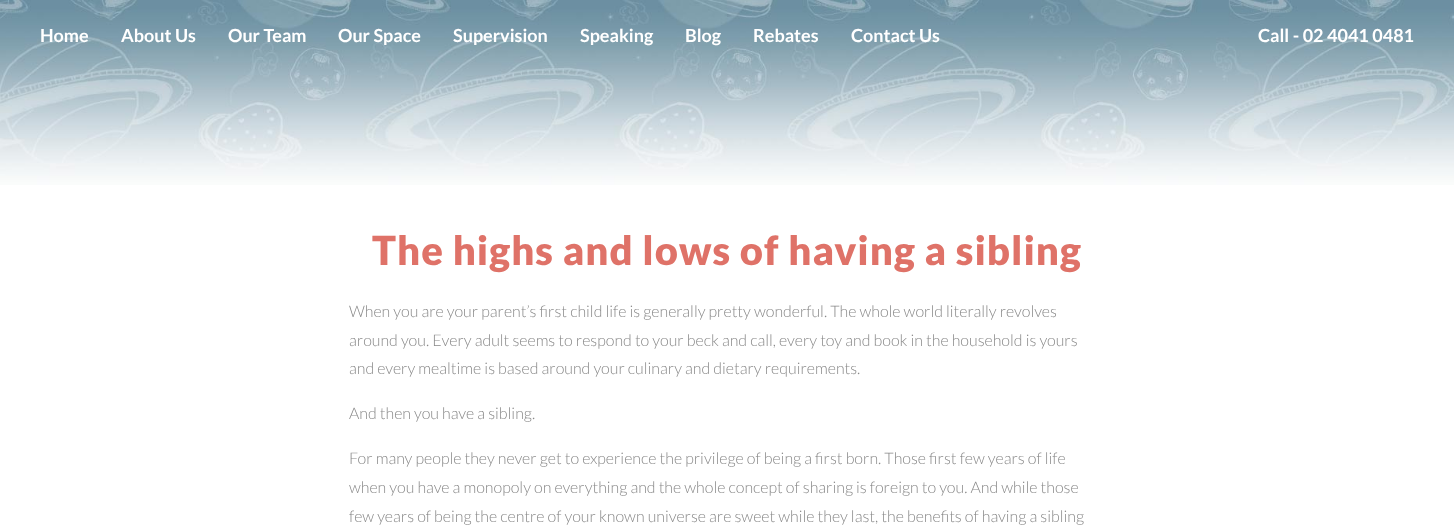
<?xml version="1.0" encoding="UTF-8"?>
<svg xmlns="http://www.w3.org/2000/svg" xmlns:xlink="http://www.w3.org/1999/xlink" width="1454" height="532">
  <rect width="100%" height="100%" fill="#ffffff" />
  <image x="0" y="0" width="1454" height="185" xlink:href="image1.png" />
  <text x="40" y="42" style="font-family: Lato; font-size: 18px; font-weight: bold; fill: #ffffff">Home</text>
  <text x="121" y="42" style="font-family: Lato; font-size: 18px; font-weight: bold; fill: #ffffff">About Us</text>
  <text x="228" y="42" style="font-family: Lato; font-size: 18px; font-weight: bold; fill: #ffffff">Our Team</text>
  <text x="338" y="42" style="font-family: Lato; font-size: 18px; font-weight: bold; fill: #ffffff">Our Space</text>
  <text x="453" y="42" style="font-family: Lato; font-size: 18px; font-weight: bold; fill: #ffffff">Supervision</text>
  <text x="580" y="42" style="font-family: Lato; font-size: 18px; font-weight: bold; fill: #ffffff">Speaking</text>
  <text x="685" y="42" style="font-family: Lato; font-size: 18px; font-weight: bold; fill: #ffffff">Blog</text>
  <text x="753" y="42" style="font-family: Lato; font-size: 18px; font-weight: bold; fill: #ffffff">Rebates</text>
  <text x="851" y="42" style="font-family: Lato; font-size: 18px; font-weight: bold; fill: #ffffff">Contact Us</text>
  <text x="1258" y="42" style="font-family: Lato; font-size: 18px; font-weight: bold; fill: #ffffff">Call - 02 4041 0481</text>
  <text x="372" y="265" style="font-family: Lato; font-size: 40px; font-weight: 900; letter-spacing: 1px; fill: #df7268">The highs and lows of having a sibling</text>
  <text x="349" y="317" style="font-family: Lato; font-size: 16px; font-weight: 300; fill: #898989">When you are your parent’s first child life is generally pretty wonderful. The whole world literally revolves</text>
  <text x="349" y="346" style="font-family: Lato; font-size: 16px; font-weight: 300; fill: #898989">around you. Every adult seems to respond to your beck and call, every toy and book in the household is yours</text>
  <text x="349" y="374" style="font-family: Lato; font-size: 16px; font-weight: 300; fill: #898989">and every mealtime is based around your culinary and dietary requirements.</text>
  <text x="349" y="419" style="font-family: Lato; font-size: 16px; font-weight: 300; fill: #898989">And then you have a sibling.</text>
  <text x="349" y="464" style="font-family: Lato; font-size: 16px; font-weight: 300; fill: #898989">For many people they never get to experience the privilege of being a first born. Those first few years of life</text>
  <text x="349" y="493" style="font-family: Lato; font-size: 16px; font-weight: 300; fill: #898989">when you have a monopoly on everything and the whole concept of sharing is foreign to you. And while those</text>
  <text x="349" y="522" style="font-family: Lato; font-size: 16px; font-weight: 300; fill: #898989">few years of being the centre of your known universe are sweet while they last, the benefits of having a sibling</text>
</svg>
